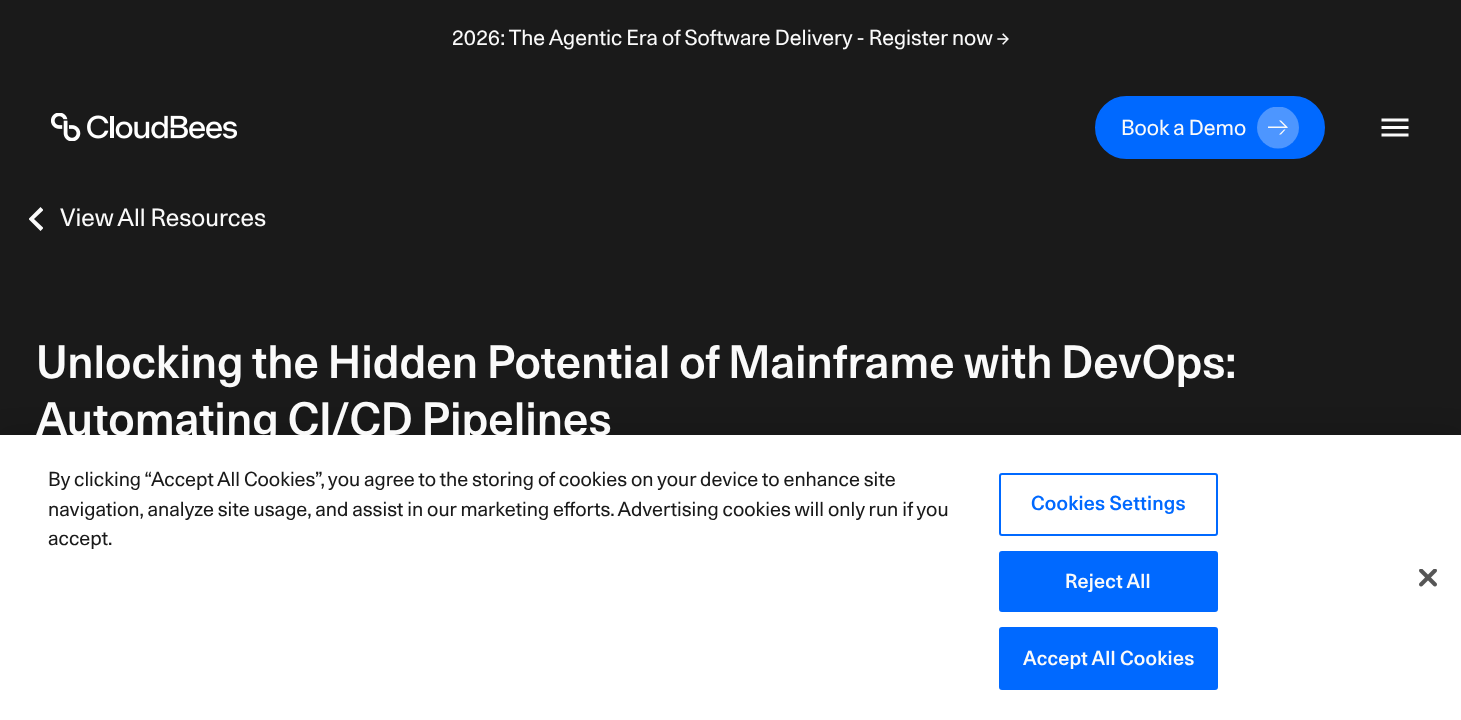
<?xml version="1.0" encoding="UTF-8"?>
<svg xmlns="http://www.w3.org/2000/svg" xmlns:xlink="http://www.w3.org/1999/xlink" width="1461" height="720">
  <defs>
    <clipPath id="clip1"><rect x="1257" y="107" width="42" height="42" /></clipPath>
    <clipPath id="clip2"><rect x="29" y="207" width="14" height="24" /></clipPath>
  </defs>
  <rect width="100%" height="100%" fill="#1a1a1a" />
  <image x="51" y="113" width="186" height="28" xlink:href="image1.png" />
  <rect x="1096" y="97" width="228" height="61" rx="30.5" fill="#0069ff" stroke="#0069ff" stroke-width="2" />
  <g clip-path="url(#clip1)">
    <circle cx="1278" cy="127.5" r="21" fill="#4d96ff" />
  </g>
  <path d="M 1284 129.5 l -5 5 h 2 l 4.5 -5 z m 3 -1.5 l 1 -0.5 l -7 -7 h -2 l 6 6 h -17 v 1.5 z" fill="#fafafa" />
  <image x="1381" y="118" width="28" height="19" xlink:href="image2.png" />
  <g clip-path="url(#clip2)">
    <path d="M 40.5 231 l 3 -3 l -9.5 -9 l 9.5 -9 l -3 -3 l -12 12 z" fill="#fafafa" />
  </g>
  <rect y="435" width="1461" height="285" fill="#000000" fill-opacity="0.2" filter="blur(13.5px)" />
  <text x="452" y="45" style="font-family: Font; font-size: 21px; fill: #fafafa">2026: The Agentic Era of Software Delivery - Register now →</text>
  <text x="1121" y="135" style="font-family: Font; font-size: 21px; fill: #fafafa">Book a Demo</text>
  <text x="60" y="226" style="font-family: Font; font-size: 24px; fill: #fafafa">View All Resources</text>
  <text x="36" y="378" style="font-family: Font; font-size: 45px; font-weight: 500; fill: #fafafa">Unlocking the Hidden Potential of Mainframe with DevOps:</text>
  <text x="36" y="435" style="font-family: Font; font-size: 45px; font-weight: 500; fill: #fafafa">Automating CI/CD Pipelines</text>
  <rect y="435" width="1461" height="285" fill="#ffffff" />
  <text x="48" y="486" style="font-family: Font; font-size: 19.5px; fill: #1a1a1a">By clicking “Accept All Cookies”, you agree to the storing of cookies on your device to enhance site</text>
  <text x="48" y="516" style="font-family: Font; font-size: 19.5px; fill: #1a1a1a">navigation, analyze site usage, and assist in our marketing efforts. Advertising cookies will only run if you</text>
  <text x="48" y="545" style="font-family: Font; font-size: 19.5px; fill: #1a1a1a">accept.</text>
  <rect x="1000" y="474" width="217" height="61" rx="2" fill="none" stroke="#0069ff" stroke-width="2" />
  <text x="1031" y="510" style="font-family: Font; font-size: 19.5px; font-weight: 500; letter-spacing: 0.25px; fill: #0069ff">Cookies Settings</text>
  <rect x="1000" y="552" width="217" height="59" rx="2" fill="#0069ff" stroke="#0069ff" stroke-width="2" />
  <text x="1065" y="588" style="font-family: Font; font-size: 19.5px; font-weight: 500; letter-spacing: 0.25px; fill: #fafafa">Reject All</text>
  <rect x="1000" y="628" width="217" height="61" rx="2" fill="#0069ff" stroke="#0069ff" stroke-width="2" />
  <text x="1023" y="665" style="font-family: Font; font-size: 19.5px; font-weight: 500; letter-spacing: 0.25px; fill: #fafafa">Accept All Cookies</text>
  <image x="1419" y="569" width="18" height="18" xlink:href="image3.png" />
</svg>
